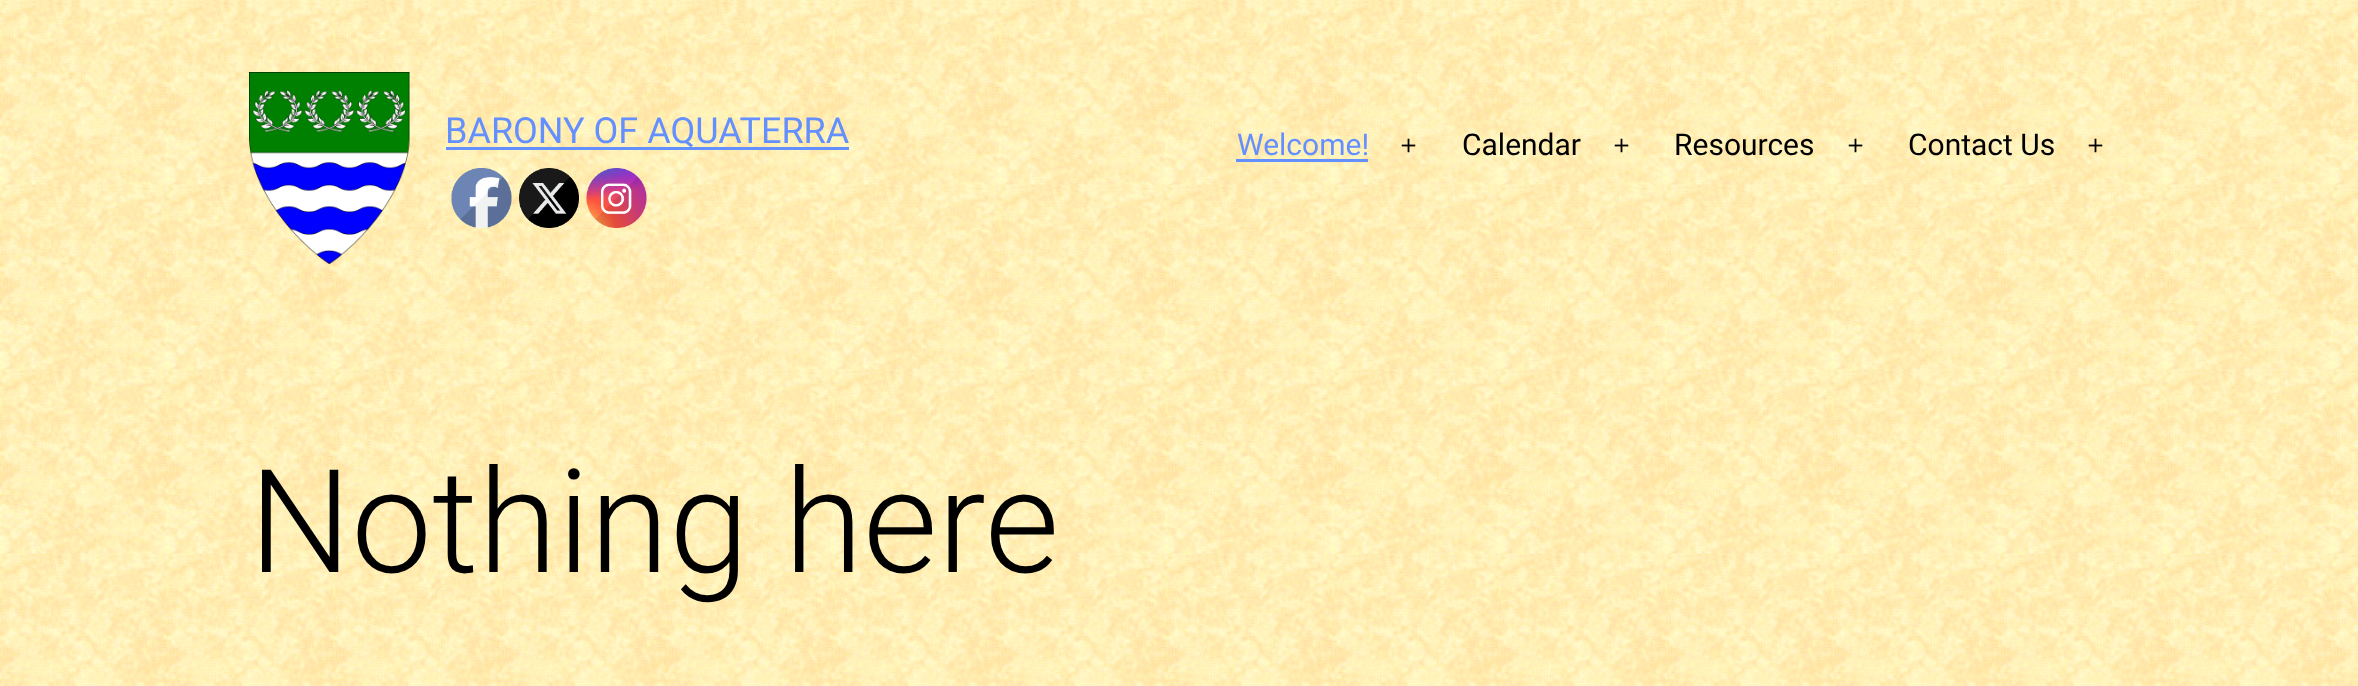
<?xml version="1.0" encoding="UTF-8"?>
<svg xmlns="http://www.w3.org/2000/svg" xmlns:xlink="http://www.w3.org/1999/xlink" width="2358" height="686">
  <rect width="100%" height="100%" fill="#ffffff" />
  <image x="0" y="0" width="2358" height="686" xlink:href="image1.png" />
  <image x="249" y="72" width="161" height="192" xlink:href="image2.png" />
  <rect x="446" y="147" width="403" height="3" fill="#648fff" />
  <image x="451" y="168" width="61" height="60" xlink:href="image3.png" />
  <image x="519" y="168" width="60" height="60" xlink:href="image4.png" />
  <image x="586" y="168" width="61" height="60" xlink:href="image5.png" />
  <rect x="1236" y="159" width="132" height="3" fill="#648fff" />
  <image x="1401" y="138" width="15" height="15" xlink:href="image6.png" />
  <image x="1614" y="138" width="15" height="15" xlink:href="image7.png" />
  <image x="1848" y="138" width="15" height="15" xlink:href="image8.png" />
  <image x="2088" y="138" width="15" height="15" xlink:href="image9.png" />
  <text x="445" y="143" style="font-family: Roboto; font-size: 36px; fill: #648fff">BARONY OF AQUATERRA</text>
  <text x="1237" y="155" style="font-family: Roboto; font-size: 30px; fill: #648fff">Welcome!</text>
  <text x="1462" y="155" style="font-family: Roboto; font-size: 30px; fill: #000000">Calendar</text>
  <text x="1674" y="155" style="font-family: Roboto; font-size: 30px; fill: #000000">Resources</text>
  <text x="1908" y="155" style="font-family: Roboto; font-size: 30px; fill: #000000">Contact Us</text>
  <text x="249" y="572" style="font-family: Roboto; font-size: 144px; font-weight: 300; fill: #000000">Nothing here</text>
</svg>
